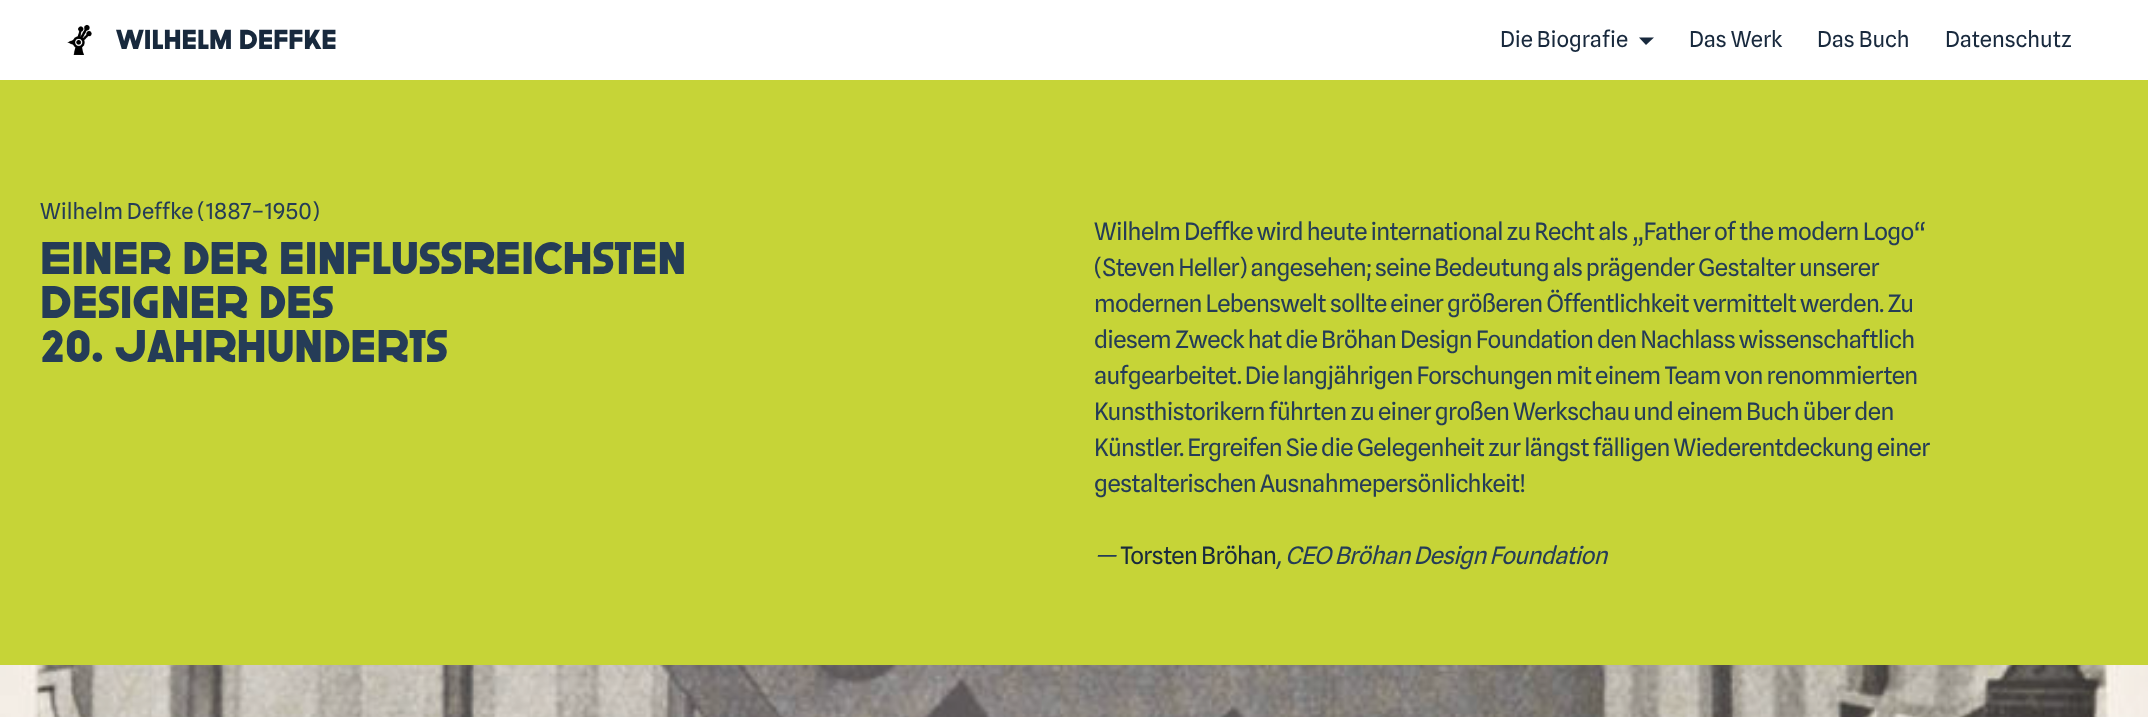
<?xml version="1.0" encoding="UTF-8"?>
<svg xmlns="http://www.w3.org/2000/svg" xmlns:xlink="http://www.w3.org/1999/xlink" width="2148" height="717">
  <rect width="100%" height="100%" fill="#ffffff" />
  <image x="67" y="24" width="25" height="31" xlink:href="image1.png" />
  <path d="M 1639 37.5 h 15 l -8 7.5 z" fill="#18293d" />
  <rect y="80" width="2148" height="585" fill="#c6d437" />
  <image x="0" y="665" width="2148" height="52" xlink:href="image2.png" />
  <text x="116" y="49" style="font-family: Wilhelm; font-size: 24px; font-weight: bold; fill: #18293d">Wilhelm Deffke</text>
  <text x="1500" y="47" style="font-family: Spline Sans; font-size: 22px; fill: #18293d">Die Biografie</text>
  <text x="1689" y="47" style="font-family: Spline Sans; font-size: 22px; fill: #18293d">Das Werk</text>
  <text x="1817" y="47" style="font-family: Spline Sans; font-size: 22px; fill: #18293d">Das Buch</text>
  <text x="1945" y="47" style="font-family: Spline Sans; font-size: 22px; fill: #18293d">Datenschutz</text>
  <text x="40" y="219" style="font-family: Spline Sans; font-size: 22px; fill: #253c57">Wilhelm Deffke (1887–1950)</text>
  <text x="40" y="274" style="font-family: Wilhelm; font-size: 40px; font-weight: bold; fill: #253c57">Einer der einflussreichsten</text>
  <text x="40" y="318" style="font-family: Wilhelm; font-size: 40px; font-weight: bold; fill: #253c57">Designer des</text>
  <text x="40" y="362" style="font-family: Wilhelm; font-size: 40px; font-weight: bold; fill: #253c57">20. Jahrhunderts</text>
  <text x="1094" y="240" style="font-family: Spline Sans; font-size: 24px; letter-spacing: -0.6px; fill: #253c57">Wilhelm Deffke wird heute international zu Recht als „Father of the modern Logo“</text>
  <text x="1094" y="276" style="font-family: Spline Sans; font-size: 24px; letter-spacing: -0.6px; fill: #253c57">(Steven Heller) angesehen; seine Bedeutung als prägender Gestalter unserer</text>
  <text x="1094" y="312" style="font-family: Spline Sans; font-size: 24px; letter-spacing: -0.6px; fill: #253c57">modernen Lebenswelt sollte einer größeren Öffentlichkeit vermittelt werden. Zu</text>
  <text x="1094" y="348" style="font-family: Spline Sans; font-size: 24px; letter-spacing: -0.6px; fill: #253c57">diesem Zweck hat die Bröhan Design Foundation den Nachlass wissenschaftlich</text>
  <text x="1094" y="384" style="font-family: Spline Sans; font-size: 24px; letter-spacing: -0.6px; fill: #253c57">aufgearbeitet. Die langjährigen Forschungen mit einem Team von renommierten</text>
  <text x="1094" y="420" style="font-family: Spline Sans; font-size: 24px; letter-spacing: -0.6px; fill: #253c57">Kunsthistorikern führten zu einer großen Werkschau und einem Buch über den</text>
  <text x="1094" y="456" style="font-family: Spline Sans; font-size: 24px; letter-spacing: -0.6px; fill: #253c57">Künstler. Ergreifen Sie die Gelegenheit zur längst fälligen Wiederentdeckung einer</text>
  <text x="1094" y="492" style="font-family: Spline Sans; font-size: 24px; letter-spacing: -0.6px; fill: #253c57">gestalterischen Ausnahmepersönlichkeit!</text>
  <text x="1094" y="564" style="font-family: Spline Sans; font-size: 24px; font-style: italic; letter-spacing: -0.6px; fill: #253c57">—</text>
  <text x="1120" y="564" style="font-family: Spline Sans; font-size: 24px; letter-spacing: -0.6px; fill: #18293d">Torsten Bröhan</text>
  <text x="1276" y="564" style="font-family: Spline Sans; font-size: 24px; font-style: italic; letter-spacing: -0.6px; fill: #253c57">, CEO Bröhan Design Foundation</text>
</svg>
